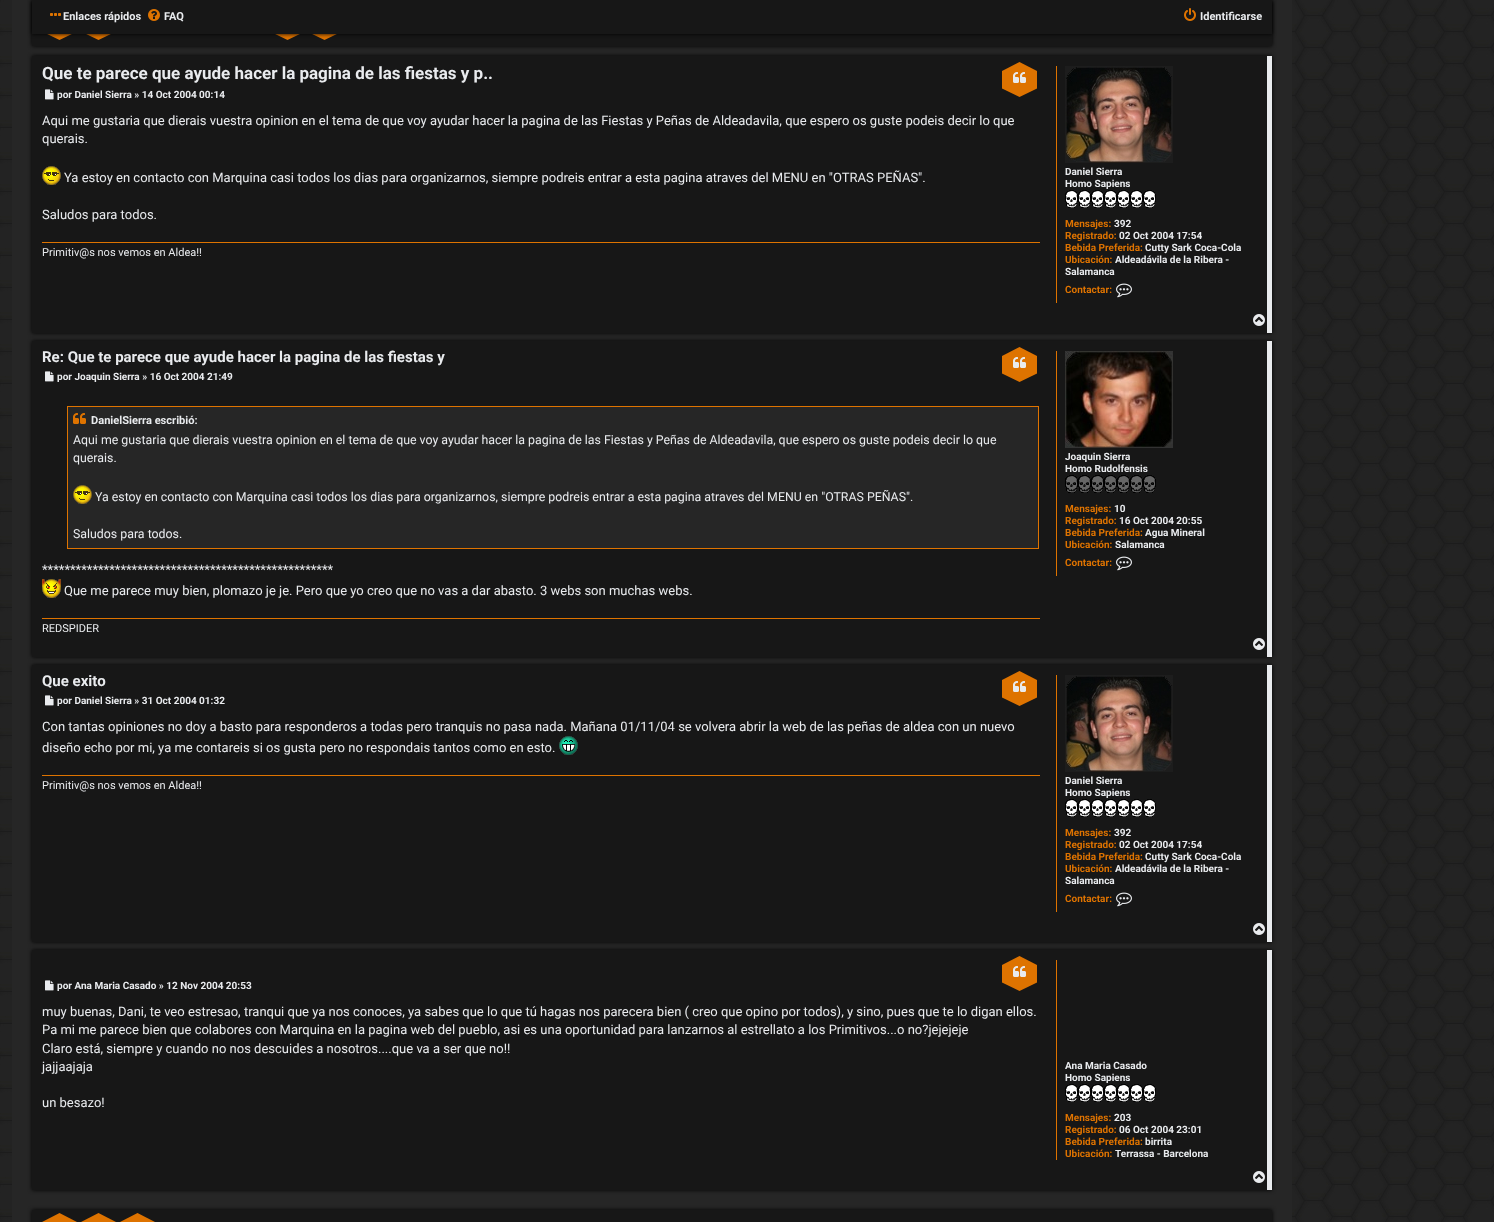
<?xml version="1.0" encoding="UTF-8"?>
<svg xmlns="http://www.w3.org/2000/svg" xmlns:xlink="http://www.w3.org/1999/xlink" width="1494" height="1222">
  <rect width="100%" height="100%" fill="#ffffff" />
  <image x="0" y="0" width="1494" height="1222" xlink:href="image1.png" />
  <rect x="12" width="1280" height="1222" fill="#262626" />
  <rect x="32" y="1" width="1240" height="45" fill="#000000" filter="blur(2px)" />
  <rect x="32" y="34" width="1240" height="12" fill="#171717" />
  <path d="M 42 14 l 17.5 -9 l 17.5 9 v 17.5 l -17.5 8.5 l -17.5 -8.5 z" fill="#de7300" />
  <path d="M 81 14 l 17.5 -9 l 17.5 9 v 17.5 l -17.5 8.5 l -17.5 -8.5 z" fill="#de7300" />
  <path d="M 270 14 l 17.5 -9 l 17.5 9 v 17.5 l -17.5 8.5 l -17.5 -8.5 z" fill="#de7300" />
  <path d="M 307 14 l 17.5 -9 l 17.5 9 v 17.5 l -17.5 8.5 l -17.5 -8.5 z" fill="#de7300" />
  <rect x="32" width="1240" height="34" fill="#000000" filter="blur(2px)" />
  <rect x="32" width="1240" height="34" fill="#171717" />
  <image x="50" y="13" width="11" height="3" xlink:href="image2.png" />
  <image x="148" y="9" width="12" height="12" xlink:href="image3.png" />
  <image x="1184" y="8" width="12" height="13" xlink:href="image4.png" />
  <rect x="32" y="56" width="1240" height="277" fill="#000000" filter="blur(2px)" />
  <rect x="32" y="56" width="1235" height="277" fill="#171717" />
  <rect x="1267" y="56" width="5" height="277" fill="#e9ebee" />
  <path d="M 1002 71 l 17.5 -9 l 17.5 9 v 17.5 l -17.5 8.5 l -17.5 -8.5 z" fill="#de7300" />
  <image x="1013" y="72" width="13" height="11" xlink:href="image5.png" />
  <image x="45" y="89" width="9" height="11" xlink:href="image6.png" />
  <image x="42" y="166" width="19" height="19" xlink:href="image7.png" />
  <rect x="42" y="242" width="998" height="1" fill="#de7300" />
  <rect x="1056" y="66" width="1" height="237" fill="#de7300" />
  <image x="1065" y="66" width="108" height="97" xlink:href="image8.png" />
  <image x="1065" y="190" width="91" height="18" xlink:href="image9.png" />
  <image x="1116" y="283" width="16" height="15" xlink:href="image10.png" />
  <image x="1253" y="314" width="12" height="12" xlink:href="image11.png" />
  <rect x="32" y="341" width="1240" height="316" fill="#000000" filter="blur(2px)" />
  <rect x="32" y="341" width="1235" height="316" fill="#171717" />
  <rect x="1267" y="341" width="5" height="316" fill="#e9ebee" />
  <path d="M 1002 356 l 17.5 -9 l 17.5 9 v 17.5 l -17.5 8.5 l -17.5 -8.5 z" fill="#de7300" />
  <image x="1013" y="357" width="13" height="11" xlink:href="image5.png" />
  <image x="45" y="371" width="9" height="11" xlink:href="image6.png" />
  <rect x="67.5" y="406.5" width="971" height="142" fill="#262626" stroke="#de7300" />
  <image x="73" y="413" width="13" height="11" xlink:href="image12.png" />
  <image x="73" y="485" width="19" height="19" xlink:href="image13.png" />
  <image x="42" y="579" width="19" height="19" xlink:href="image14.png" />
  <rect x="42" y="618" width="998" height="1" fill="#de7300" />
  <rect x="1056" y="351" width="1" height="225" fill="#de7300" />
  <image x="1065" y="351" width="108" height="97" xlink:href="image15.png" />
  <image x="1065" y="475" width="91" height="18" xlink:href="image16.png" />
  <image x="1116" y="556" width="16" height="15" xlink:href="image10.png" />
  <image x="1253" y="638" width="12" height="12" xlink:href="image11.png" />
  <rect x="32" y="665" width="1240" height="277" fill="#000000" filter="blur(2px)" />
  <rect x="32" y="665" width="1235" height="277" fill="#171717" />
  <rect x="1267" y="665" width="5" height="277" fill="#e9ebee" />
  <path d="M 1002 680 l 17.5 -9 l 17.5 9 v 17.5 l -17.5 8.5 l -17.5 -8.5 z" fill="#de7300" />
  <image x="1013" y="681" width="13" height="11" xlink:href="image5.png" />
  <image x="45" y="695" width="9" height="11" xlink:href="image6.png" />
  <image x="559" y="736" width="19" height="19" xlink:href="image17.png" />
  <rect x="42" y="775" width="998" height="1" fill="#de7300" />
  <rect x="1056" y="675" width="1" height="237" fill="#de7300" />
  <image x="1065" y="675" width="108" height="97" xlink:href="image8.png" />
  <image x="1065" y="799" width="91" height="18" xlink:href="image9.png" />
  <image x="1116" y="892" width="16" height="15" xlink:href="image10.png" />
  <image x="1253" y="923" width="12" height="12" xlink:href="image11.png" />
  <rect x="32" y="950" width="1240" height="240" fill="#000000" filter="blur(2px)" />
  <rect x="32" y="950" width="1235" height="240" fill="#171717" />
  <rect x="1267" y="950" width="5" height="240" fill="#e9ebee" />
  <image x="45" y="980" width="9" height="11" xlink:href="image6.png" />
  <path d="M 1002 965 l 17.5 -9 l 17.5 9 v 17.5 l -17.5 8.5 l -17.5 -8.5 z" fill="#de7300" />
  <image x="1013" y="966" width="13" height="11" xlink:href="image5.png" />
  <rect x="1056" y="960" width="1" height="200" fill="#de7300" />
  <image x="1065" y="1084" width="91" height="18" xlink:href="image9.png" />
  <image x="1253" y="1171" width="12" height="12" xlink:href="image11.png" />
  <rect x="32" y="1210" width="1240" height="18" fill="#000000" filter="blur(2px)" />
  <rect x="32" y="1210" width="1240" height="12" fill="#171717" />
  <path d="M 42 1222 l 17.5 -9 l 17.5 9 v 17.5 l -17.5 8.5 l -17.5 -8.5 z" fill="#de7300" />
  <path d="M 81 1222 l 17.5 -9 l 17.5 9 v 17.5 l -17.5 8.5 l -17.5 -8.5 z" fill="#de7300" />
  <path d="M 120 1222 l 17.5 -9 l 17.5 9 v 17.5 l -17.5 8.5 l -17.5 -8.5 z" fill="#de7300" />
  <text x="63" y="20" style="font-family: Roboto; font-size: 11px; font-weight: bold; fill: #e9ebee">Enlaces rápidos</text>
  <text x="164" y="20" style="font-family: Roboto; font-size: 11px; font-weight: bold; fill: #e9ebee">FAQ</text>
  <text x="1200" y="20" style="font-family: Roboto; font-size: 11px; font-weight: bold; fill: #e9ebee">Identificarse</text>
  <text x="42" y="79" style="font-family: Roboto; font-size: 17px; font-weight: bold; fill: #e9ebee">Que te parece que ayude hacer la pagina de las fiestas y p..</text>
  <text x="57" y="98" style="font-family: Roboto; font-size: 10px; font-weight: bold; fill: #e9ebee">por Daniel Sierra » 14 Oct 2004 00:14</text>
  <text x="42" y="125" style="font-family: Roboto; font-size: 13px; fill: #e9ebee">Aqui me gustaria que dierais vuestra opinion en el tema de que voy ayudar hacer la pagina de las Fiestas y Peñas de Aldeadavila, que espero os guste podeis decir lo que</text>
  <text x="42" y="143" style="font-family: Roboto; font-size: 13px; fill: #e9ebee">querais.</text>
  <text x="64" y="182" style="font-family: Roboto; font-size: 13px; fill: #e9ebee">Ya estoy en contacto con Marquina casi todos los dias para organizarnos, siempre podreis entrar a esta pagina atraves del MENU en "OTRAS PEÑAS".</text>
  <text x="42" y="219" style="font-family: Roboto; font-size: 13px; fill: #e9ebee">Saludos para todos.</text>
  <text x="42" y="256" style="font-family: Roboto; font-size: 11px; fill: #e9ebee">Primitiv@s nos vemos en Aldea!!</text>
  <text x="1065" y="175" style="font-family: Roboto; font-size: 10px; font-weight: bold; fill: #e9ebee">Daniel Sierra</text>
  <text x="1065" y="187" style="font-family: Roboto; font-size: 10px; font-weight: bold; fill: #e9ebee">Homo Sapiens</text>
  <text x="1065" y="227" style="font-family: Roboto; font-size: 10px; font-weight: bold; fill: #de7300">Mensajes:</text>
  <text x="1114" y="227" style="font-family: Roboto; font-size: 10px; font-weight: bold; fill: #e9ebee">392</text>
  <text x="1065" y="239" style="font-family: Roboto; font-size: 10px; font-weight: bold; fill: #de7300">Registrado:</text>
  <text x="1119" y="239" style="font-family: Roboto; font-size: 10px; font-weight: bold; fill: #e9ebee">02 Oct 2004 17:54</text>
  <text x="1065" y="251" style="font-family: Roboto; font-size: 10px; font-weight: bold; fill: #de7300">Bebida Preferida:</text>
  <text x="1145" y="251" style="font-family: Roboto; font-size: 10px; font-weight: bold; fill: #e9ebee">Cutty Sark Coca-Cola</text>
  <text x="1065" y="263" style="font-family: Roboto; font-size: 10px; font-weight: bold; fill: #de7300">Ubicación:</text>
  <text x="1115" y="263" style="font-family: Roboto; font-size: 10px; font-weight: bold; fill: #e9ebee">Aldeadávila de la Ribera -</text>
  <text x="1065" y="275" style="font-family: Roboto; font-size: 10px; font-weight: bold; fill: #e9ebee">Salamanca</text>
  <text x="1065" y="293" style="font-family: Roboto; font-size: 10px; font-weight: bold; fill: #de7300">Contactar:</text>
  <text x="42" y="362" style="font-family: Roboto; font-size: 15px; font-weight: bold; fill: #e9ebee">Re: Que te parece que ayude hacer la pagina de las fiestas y</text>
  <text x="57" y="380" style="font-family: Roboto; font-size: 10px; font-weight: bold; fill: #e9ebee">por Joaquin Sierra » 16 Oct 2004 21:49</text>
  <text x="91" y="424" style="font-family: Roboto; font-size: 11.1px; font-weight: bold; fill: #e9ebee">DanielSierra escribió:</text>
  <text x="73" y="444" style="font-family: Roboto; font-size: 12.35px; fill: #e9ebee">Aqui me gustaria que dierais vuestra opinion en el tema de que voy ayudar hacer la pagina de las Fiestas y Peñas de Aldeadavila, que espero os guste podeis decir lo que</text>
  <text x="73" y="462" style="font-family: Roboto; font-size: 12.35px; fill: #e9ebee">querais.</text>
  <text x="95" y="501" style="font-family: Roboto; font-size: 12.35px; fill: #e9ebee">Ya estoy en contacto con Marquina casi todos los dias para organizarnos, siempre podreis entrar a esta pagina atraves del MENU en "OTRAS PEÑAS".</text>
  <text x="73" y="538" style="font-family: Roboto; font-size: 12.35px; fill: #e9ebee">Saludos para todos.</text>
  <text x="42" y="574" style="font-family: Roboto; font-size: 13px; fill: #e9ebee">****************************************************</text>
  <text x="64" y="595" style="font-family: Roboto; font-size: 13px; fill: #e9ebee">Que me parece muy bien, plomazo je je. Pero que yo creo que no vas a dar abasto. 3 webs son muchas webs.</text>
  <text x="42" y="632" style="font-family: Roboto; font-size: 11px; fill: #e9ebee">REDSPIDER</text>
  <text x="1065" y="460" style="font-family: Roboto; font-size: 10px; font-weight: bold; fill: #e9ebee">Joaquin Sierra</text>
  <text x="1065" y="472" style="font-family: Roboto; font-size: 10px; font-weight: bold; fill: #e9ebee">Homo Rudolfensis</text>
  <text x="1065" y="512" style="font-family: Roboto; font-size: 10px; font-weight: bold; fill: #de7300">Mensajes:</text>
  <text x="1114" y="512" style="font-family: Roboto; font-size: 10px; font-weight: bold; fill: #e9ebee">10</text>
  <text x="1065" y="524" style="font-family: Roboto; font-size: 10px; font-weight: bold; fill: #de7300">Registrado:</text>
  <text x="1119" y="524" style="font-family: Roboto; font-size: 10px; font-weight: bold; fill: #e9ebee">16 Oct 2004 20:55</text>
  <text x="1065" y="536" style="font-family: Roboto; font-size: 10px; font-weight: bold; fill: #de7300">Bebida Preferida:</text>
  <text x="1145" y="536" style="font-family: Roboto; font-size: 10px; font-weight: bold; fill: #e9ebee">Agua Mineral</text>
  <text x="1065" y="548" style="font-family: Roboto; font-size: 10px; font-weight: bold; fill: #de7300">Ubicación:</text>
  <text x="1115" y="548" style="font-family: Roboto; font-size: 10px; font-weight: bold; fill: #e9ebee">Salamanca</text>
  <text x="1065" y="566" style="font-family: Roboto; font-size: 10px; font-weight: bold; fill: #de7300">Contactar:</text>
  <text x="42" y="686" style="font-family: Roboto; font-size: 15px; font-weight: bold; fill: #e9ebee">Que exito</text>
  <text x="57" y="704" style="font-family: Roboto; font-size: 10px; font-weight: bold; fill: #e9ebee">por Daniel Sierra » 31 Oct 2004 01:32</text>
  <text x="42" y="731" style="font-family: Roboto; font-size: 13px; fill: #e9ebee">Con tantas opiniones no doy a basto para responderos a todas pero tranquis no pasa nada. Mañana 01/11/04 se volvera abrir la web de las peñas de aldea con un nuevo</text>
  <text x="42" y="752" style="font-family: Roboto; font-size: 13px; fill: #e9ebee">diseño echo por mi, ya me contareis si os gusta pero no respondais tantos como en esto.</text>
  <text x="42" y="789" style="font-family: Roboto; font-size: 11px; fill: #e9ebee">Primitiv@s nos vemos en Aldea!!</text>
  <text x="1065" y="784" style="font-family: Roboto; font-size: 10px; font-weight: bold; fill: #e9ebee">Daniel Sierra</text>
  <text x="1065" y="796" style="font-family: Roboto; font-size: 10px; font-weight: bold; fill: #e9ebee">Homo Sapiens</text>
  <text x="1065" y="836" style="font-family: Roboto; font-size: 10px; font-weight: bold; fill: #de7300">Mensajes:</text>
  <text x="1114" y="836" style="font-family: Roboto; font-size: 10px; font-weight: bold; fill: #e9ebee">392</text>
  <text x="1065" y="848" style="font-family: Roboto; font-size: 10px; font-weight: bold; fill: #de7300">Registrado:</text>
  <text x="1119" y="848" style="font-family: Roboto; font-size: 10px; font-weight: bold; fill: #e9ebee">02 Oct 2004 17:54</text>
  <text x="1065" y="860" style="font-family: Roboto; font-size: 10px; font-weight: bold; fill: #de7300">Bebida Preferida:</text>
  <text x="1145" y="860" style="font-family: Roboto; font-size: 10px; font-weight: bold; fill: #e9ebee">Cutty Sark Coca-Cola</text>
  <text x="1065" y="872" style="font-family: Roboto; font-size: 10px; font-weight: bold; fill: #de7300">Ubicación:</text>
  <text x="1115" y="872" style="font-family: Roboto; font-size: 10px; font-weight: bold; fill: #e9ebee">Aldeadávila de la Ribera -</text>
  <text x="1065" y="884" style="font-family: Roboto; font-size: 10px; font-weight: bold; fill: #e9ebee">Salamanca</text>
  <text x="1065" y="902" style="font-family: Roboto; font-size: 10px; font-weight: bold; fill: #de7300">Contactar:</text>
  <text x="57" y="989" style="font-family: Roboto; font-size: 10px; font-weight: bold; fill: #e9ebee">por Ana Maria Casado » 12 Nov 2004 20:53</text>
  <text x="42" y="1016" style="font-family: Roboto; font-size: 13px; fill: #e9ebee">muy buenas, Dani, te veo estresao, tranqui que ya nos conoces, ya sabes que lo que tú hagas nos parecera bien ( creo que opino por todos), y sino, pues que te lo digan ellos.</text>
  <text x="42" y="1034" style="font-family: Roboto; font-size: 13px; fill: #e9ebee">Pa mi me parece bien que colabores con Marquina en la pagina web del pueblo, asi es una oportunidad para lanzarnos al estrellato a los Primitivos...o no?jejejeje</text>
  <text x="42" y="1053" style="font-family: Roboto; font-size: 13px; fill: #e9ebee">Claro está, siempre y cuando no nos descuides a nosotros....que va a ser que no!!</text>
  <text x="42" y="1071" style="font-family: Roboto; font-size: 13px; fill: #e9ebee">jajjaajaja</text>
  <text x="42" y="1107" style="font-family: Roboto; font-size: 13px; fill: #e9ebee">un besazo!</text>
  <text x="1065" y="1069" style="font-family: Roboto; font-size: 10px; font-weight: bold; fill: #e9ebee">Ana Maria Casado</text>
  <text x="1065" y="1081" style="font-family: Roboto; font-size: 10px; font-weight: bold; fill: #e9ebee">Homo Sapiens</text>
  <text x="1065" y="1121" style="font-family: Roboto; font-size: 10px; font-weight: bold; fill: #de7300">Mensajes:</text>
  <text x="1114" y="1121" style="font-family: Roboto; font-size: 10px; font-weight: bold; fill: #e9ebee">203</text>
  <text x="1065" y="1133" style="font-family: Roboto; font-size: 10px; font-weight: bold; fill: #de7300">Registrado:</text>
  <text x="1119" y="1133" style="font-family: Roboto; font-size: 10px; font-weight: bold; fill: #e9ebee">06 Oct 2004 23:01</text>
  <text x="1065" y="1145" style="font-family: Roboto; font-size: 10px; font-weight: bold; fill: #de7300">Bebida Preferida:</text>
  <text x="1145" y="1145" style="font-family: Roboto; font-size: 10px; font-weight: bold; fill: #e9ebee">birrita</text>
  <text x="1065" y="1157" style="font-family: Roboto; font-size: 10px; font-weight: bold; fill: #de7300">Ubicación:</text>
  <text x="1115" y="1157" style="font-family: Roboto; font-size: 10px; font-weight: bold; fill: #e9ebee">Terrassa - Barcelona</text>
</svg>
